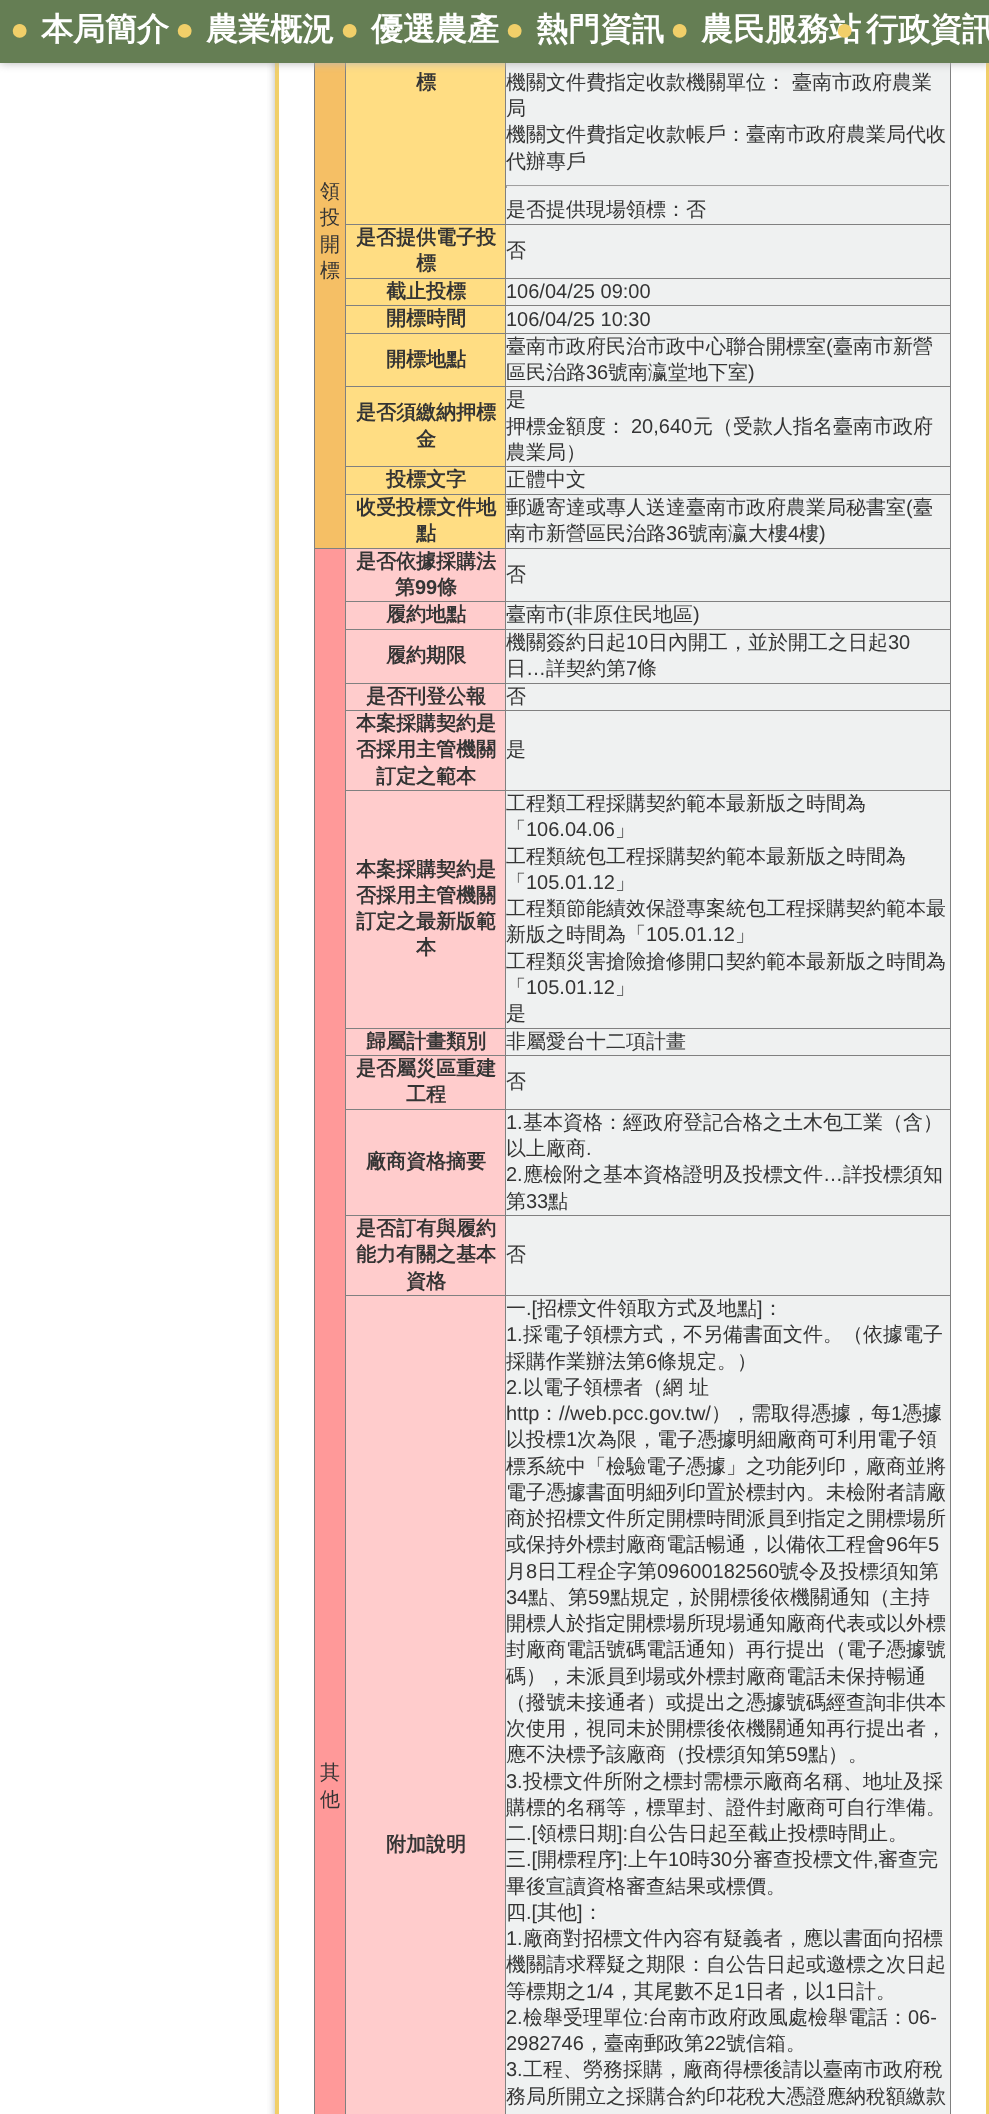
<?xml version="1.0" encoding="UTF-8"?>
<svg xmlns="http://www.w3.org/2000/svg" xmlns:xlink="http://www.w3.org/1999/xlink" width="989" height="2114">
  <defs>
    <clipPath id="clip1"><rect x="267" y="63" width="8" height="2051" /></clipPath>
  </defs>
  <rect width="100%" height="100%" fill="#ffffff" />
  <g clip-path="url(#clip1)">
    <rect x="275" y="-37" width="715" height="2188" rx="25" fill="#b6b6b6" filter="blur(4px)" />
  </g>
  <rect x="277" y="-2" width="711" height="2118" fill="none" stroke="#f1cf69" stroke-width="4" />
  <rect x="950" y="63" width="1" height="2051" fill="#808080" />
  <rect x="314" y="63" width="1" height="2051" fill="#808080" />
  <rect x="346" y="63" width="159" height="161" fill="#ffdd83" />
  <rect x="506" y="63" width="444" height="161" fill="#eff1f1" />
  <rect x="505" y="224" width="446" height="1" fill="#808080" />
  <rect x="505" y="278" width="446" height="1" fill="#808080" />
  <rect x="505" y="305" width="446" height="1" fill="#808080" />
  <rect x="505" y="333" width="446" height="1" fill="#808080" />
  <rect x="346" y="334" width="159" height="160" fill="#ffdd83" />
  <rect x="506" y="334" width="444" height="160" fill="#eff1f1" />
  <rect x="505" y="386" width="446" height="1" fill="#808080" />
  <rect x="505" y="466" width="446" height="1" fill="#808080" />
  <rect x="505" y="494" width="446" height="1" fill="#808080" />
  <rect x="505" y="548" width="446" height="1" fill="#808080" />
  <rect x="346" y="549" width="159" height="80" fill="#ffcccc" />
  <rect x="506" y="549" width="444" height="80" fill="#eff1f1" />
  <rect x="505" y="601" width="446" height="1" fill="#808080" />
  <rect x="505" y="629" width="446" height="1" fill="#808080" />
  <rect x="505" y="683" width="446" height="1" fill="#808080" />
  <rect x="505" y="710" width="446" height="1" fill="#808080" />
  <rect x="505" y="790" width="446" height="1" fill="#808080" />
  <rect x="505" y="1028" width="446" height="1" fill="#808080" />
  <rect x="505" y="1055" width="446" height="1" fill="#808080" />
  <rect x="505" y="1109" width="446" height="1" fill="#808080" />
  <rect x="505" y="1215" width="446" height="1" fill="#808080" />
  <rect x="505" y="1295" width="446" height="1" fill="#808080" />
  <rect x="505" y="1295" width="1" height="819" fill="#808080" />
  <rect x="345" y="1295" width="161" height="1" fill="#808080" />
  <rect x="505" y="1215" width="1" height="81" fill="#808080" />
  <rect x="345" y="1215" width="161" height="1" fill="#808080" />
  <rect x="505" y="1109" width="1" height="107" fill="#808080" />
  <rect x="345" y="1109" width="161" height="1" fill="#808080" />
  <rect x="505" y="1055" width="1" height="55" fill="#808080" />
  <rect x="345" y="1055" width="161" height="1" fill="#808080" />
  <rect x="505" y="1028" width="1" height="28" fill="#808080" />
  <rect x="345" y="1028" width="161" height="1" fill="#808080" />
  <rect x="505" y="790" width="1" height="239" fill="#808080" />
  <rect x="345" y="790" width="161" height="1" fill="#808080" />
  <rect x="505" y="710" width="1" height="81" fill="#808080" />
  <rect x="345" y="710" width="161" height="1" fill="#808080" />
  <rect x="505" y="683" width="1" height="28" fill="#808080" />
  <rect x="345" y="683" width="161" height="1" fill="#808080" />
  <rect x="505" y="629" width="1" height="55" fill="#808080" />
  <rect x="345" y="629" width="161" height="1" fill="#808080" />
  <rect x="505" y="601" width="1" height="29" fill="#808080" />
  <rect x="345" y="601" width="161" height="1" fill="#808080" />
  <rect x="505" y="548" width="1" height="55" fill="#808080" />
  <rect x="345" y="548" width="161" height="1" fill="#808080" />
  <rect x="505" y="494" width="1" height="55" fill="#808080" />
  <rect x="345" y="494" width="161" height="1" fill="#808080" />
  <rect x="505" y="466" width="1" height="29" fill="#808080" />
  <rect x="345" y="466" width="161" height="1" fill="#808080" />
  <rect x="505" y="386" width="1" height="82" fill="#808080" />
  <rect x="345" y="386" width="161" height="1" fill="#808080" />
  <rect x="505" y="333" width="1" height="55" fill="#808080" />
  <rect x="345" y="333" width="161" height="1" fill="#808080" />
  <rect x="505" y="305" width="1" height="29" fill="#808080" />
  <rect x="345" y="305" width="161" height="1" fill="#808080" />
  <rect x="505" y="278" width="1" height="28" fill="#808080" />
  <rect x="345" y="278" width="161" height="1" fill="#808080" />
  <rect x="505" y="224" width="1" height="55" fill="#808080" />
  <rect x="345" y="224" width="161" height="1" fill="#808080" />
  <rect x="505" y="63" width="1" height="162" fill="#808080" />
  <rect x="315" y="63" width="30" height="485" fill="#f5bf65" />
  <rect x="345" y="1295" width="1" height="819" fill="#808080" />
  <rect x="345" y="1215" width="1" height="81" fill="#808080" />
  <rect x="345" y="1109" width="1" height="107" fill="#808080" />
  <rect x="345" y="1055" width="1" height="55" fill="#808080" />
  <rect x="345" y="1028" width="1" height="28" fill="#808080" />
  <rect x="345" y="790" width="1" height="239" fill="#808080" />
  <rect x="345" y="710" width="1" height="81" fill="#808080" />
  <rect x="345" y="683" width="1" height="28" fill="#808080" />
  <rect x="345" y="629" width="1" height="55" fill="#808080" />
  <rect x="345" y="601" width="1" height="29" fill="#808080" />
  <rect x="345" y="548" width="1" height="55" fill="#808080" />
  <rect x="314" y="548" width="32" height="1" fill="#808080" />
  <rect x="345" y="494" width="1" height="55" fill="#808080" />
  <rect x="345" y="466" width="1" height="29" fill="#808080" />
  <rect x="345" y="386" width="1" height="82" fill="#808080" />
  <rect x="345" y="333" width="1" height="55" fill="#808080" />
  <rect x="345" y="305" width="1" height="29" fill="#808080" />
  <rect x="345" y="278" width="1" height="28" fill="#808080" />
  <rect x="345" y="63" width="1" height="216" fill="#808080" />
  <rect width="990" height="63" fill="#b6b6b6" filter="blur(5px)" />
  <rect width="989" height="63" fill="#657e54" />
  <rect x="506" y="185" width="444" height="1" fill="#9f9f9f" />
  <rect x="949" y="185" width="1" height="3" fill="#eeeeee" />
  <rect x="506" y="186" width="444" height="1" fill="#eeeeee" />
  <rect x="506" y="185" width="1" height="3" fill="#9f9f9f" />
  <rect x="346" y="225" width="159" height="53" fill="#ffdd83" />
  <rect x="506" y="225" width="444" height="53" fill="#eff1f1" />
  <rect x="346" y="279" width="159" height="26" fill="#ffdd83" />
  <rect x="506" y="279" width="444" height="26" fill="#eff1f1" />
  <rect x="346" y="306" width="159" height="27" fill="#ffdd83" />
  <rect x="506" y="306" width="444" height="27" fill="#eff1f1" />
  <rect x="346" y="495" width="159" height="53" fill="#ffdd83" />
  <rect x="506" y="495" width="444" height="53" fill="#eff1f1" />
  <rect x="315" y="549" width="30" height="1565" fill="#ff9999" />
  <rect x="346" y="630" width="159" height="53" fill="#ffcccc" />
  <rect x="506" y="630" width="444" height="53" fill="#eff1f1" />
  <rect x="346" y="684" width="159" height="26" fill="#ffcccc" />
  <rect x="506" y="684" width="444" height="26" fill="#eff1f1" />
  <rect x="346" y="711" width="159" height="79" fill="#ffcccc" />
  <rect x="506" y="711" width="444" height="79" fill="#eff1f1" />
  <rect x="346" y="791" width="159" height="237" fill="#ffcccc" />
  <rect x="506" y="791" width="444" height="237" fill="#eff1f1" />
  <rect x="346" y="1029" width="159" height="26" fill="#ffcccc" />
  <rect x="506" y="1029" width="444" height="26" fill="#eff1f1" />
  <rect x="346" y="1056" width="159" height="53" fill="#ffcccc" />
  <rect x="506" y="1056" width="444" height="53" fill="#eff1f1" />
  <rect x="346" y="1110" width="159" height="105" fill="#ffcccc" />
  <rect x="506" y="1110" width="444" height="105" fill="#eff1f1" />
  <rect x="346" y="1216" width="159" height="79" fill="#ffcccc" />
  <rect x="506" y="1216" width="444" height="79" fill="#eff1f1" />
  <rect x="346" y="1296" width="159" height="818" fill="#ffcccc" />
  <rect x="506" y="1296" width="444" height="818" fill="#eff1f1" />
  <text x="10" y="40" style="font-family: Liberation Sans; font-size: 32px; font-weight: bold; fill: #f1cf69">●</text>
  <text x="41" y="40" style="font-family: WenQuanYi Zen Hei; font-size: 32px; font-weight: bold; fill: #ffffff">本局簡介</text>
  <text x="175" y="40" style="font-family: Liberation Sans; font-size: 32px; font-weight: bold; fill: #f1cf69">●</text>
  <text x="206" y="40" style="font-family: WenQuanYi Zen Hei; font-size: 32px; font-weight: bold; fill: #ffffff">農業概況</text>
  <text x="340" y="40" style="font-family: Liberation Sans; font-size: 32px; font-weight: bold; fill: #f1cf69">●</text>
  <text x="371" y="40" style="font-family: WenQuanYi Zen Hei; font-size: 32px; font-weight: bold; fill: #ffffff">優選農產</text>
  <text x="505" y="40" style="font-family: Liberation Sans; font-size: 32px; font-weight: bold; fill: #f1cf69">●</text>
  <text x="536" y="40" style="font-family: WenQuanYi Zen Hei; font-size: 32px; font-weight: bold; fill: #ffffff">熱門資訊</text>
  <text x="670" y="40" style="font-family: Liberation Sans; font-size: 32px; font-weight: bold; fill: #f1cf69">●</text>
  <text x="701" y="40" style="font-family: WenQuanYi Zen Hei; font-size: 32px; font-weight: bold; fill: #ffffff">農民服務站</text>
  <text x="835" y="40" style="font-family: Liberation Sans; font-size: 32px; font-weight: bold; fill: #f1cf69">●</text>
  <text x="866" y="40" style="font-family: WenQuanYi Zen Hei; font-size: 32px; font-weight: bold; fill: #ffffff">行政資訊</text>
  <text x="416" y="89" style="font-family: WenQuanYi Zen Hei; font-size: 20px; font-weight: bold; fill: #343434">標</text>
  <text x="506" y="89" style="font-family: WenQuanYi Zen Hei; font-size: 20px; font-weight: 500; fill: #343434">機關文件費指定收款機關單位： 臺南市政府農業</text>
  <text x="506" y="115" style="font-family: WenQuanYi Zen Hei; font-size: 20px; font-weight: 500; fill: #343434">局</text>
  <text x="506" y="141" style="font-family: WenQuanYi Zen Hei; font-size: 20px; font-weight: 500; fill: #343434">機關文件費指定收款帳戶：臺南市政府農業局代收</text>
  <text x="506" y="168" style="font-family: WenQuanYi Zen Hei; font-size: 20px; font-weight: 500; fill: #343434">代辦專戶</text>
  <text x="506" y="216" style="font-family: WenQuanYi Zen Hei; font-size: 20px; font-weight: 500; fill: #343434">是否提供現場領標：否</text>
  <text x="320" y="198" style="font-family: WenQuanYi Zen Hei; font-size: 20px; font-weight: 500; fill: #343434">領</text>
  <text x="320" y="224" style="font-family: WenQuanYi Zen Hei; font-size: 20px; font-weight: 500; fill: #343434">投</text>
  <text x="320" y="251" style="font-family: WenQuanYi Zen Hei; font-size: 20px; font-weight: 500; fill: #343434">開</text>
  <text x="320" y="277" style="font-family: WenQuanYi Zen Hei; font-size: 20px; font-weight: 500; fill: #343434">標</text>
  <text x="356" y="244" style="font-family: WenQuanYi Zen Hei; font-size: 20px; font-weight: bold; fill: #343434">是否提供電子投</text>
  <text x="416" y="270" style="font-family: WenQuanYi Zen Hei; font-size: 20px; font-weight: bold; fill: #343434">標</text>
  <text x="506" y="257" style="font-family: WenQuanYi Zen Hei; font-size: 20px; font-weight: 500; fill: #343434">否</text>
  <text x="386" y="298" style="font-family: WenQuanYi Zen Hei; font-size: 20px; font-weight: bold; fill: #343434">截止投標</text>
  <text x="506" y="298" style="font-family: Liberation Sans; font-size: 20px; fill: #343434">106/04/25 09:00</text>
  <text x="386" y="325" style="font-family: WenQuanYi Zen Hei; font-size: 20px; font-weight: bold; fill: #343434">開標時間</text>
  <text x="506" y="326" style="font-family: Liberation Sans; font-size: 20px; fill: #343434">106/04/25 10:30</text>
  <text x="386" y="366" style="font-family: WenQuanYi Zen Hei; font-size: 20px; font-weight: bold; fill: #343434">開標地點</text>
  <text x="506" y="353" style="font-family: WenQuanYi Zen Hei; font-size: 20px; font-weight: 500; fill: #343434">臺南市政府民治市政中心聯合開標室</text>
  <text x="826" y="353" style="font-family: Liberation Sans; font-size: 20px; fill: #343434">(</text>
  <text x="833" y="353" style="font-family: WenQuanYi Zen Hei; font-size: 20px; font-weight: 500; fill: #343434">臺南市新營</text>
  <text x="506" y="379" style="font-family: WenQuanYi Zen Hei; font-size: 20px; font-weight: 500; fill: #343434">區民治路</text>
  <text x="586" y="379" style="font-family: Liberation Sans; font-size: 20px; fill: #343434">36</text>
  <text x="608" y="379" style="font-family: WenQuanYi Zen Hei; font-size: 20px; font-weight: 500; fill: #343434">號南瀛堂地下室</text>
  <text x="748" y="379" style="font-family: Liberation Sans; font-size: 20px; fill: #343434">)</text>
  <text x="356" y="419" style="font-family: WenQuanYi Zen Hei; font-size: 20px; font-weight: bold; fill: #343434">是否須繳納押標</text>
  <text x="416" y="446" style="font-family: WenQuanYi Zen Hei; font-size: 20px; font-weight: bold; fill: #343434">金</text>
  <text x="506" y="406" style="font-family: WenQuanYi Zen Hei; font-size: 20px; font-weight: 500; fill: #343434">是</text>
  <text x="506" y="433" style="font-family: WenQuanYi Zen Hei; font-size: 20px; font-weight: 500; fill: #343434">押標金額度：</text>
  <text x="631" y="433" style="font-family: Liberation Sans; font-size: 20px; fill: #343434">20,640</text>
  <text x="693" y="433" style="font-family: WenQuanYi Zen Hei; font-size: 20px; font-weight: 500; fill: #343434">元（受款人指名臺南市政府</text>
  <text x="506" y="459" style="font-family: WenQuanYi Zen Hei; font-size: 20px; font-weight: 500; fill: #343434">農業局）</text>
  <text x="386" y="486" style="font-family: WenQuanYi Zen Hei; font-size: 20px; font-weight: bold; fill: #343434">投標文字</text>
  <text x="506" y="486" style="font-family: WenQuanYi Zen Hei; font-size: 20px; font-weight: 500; fill: #343434">正體中文</text>
  <text x="356" y="514" style="font-family: WenQuanYi Zen Hei; font-size: 20px; font-weight: bold; fill: #343434">收受投標文件地</text>
  <text x="416" y="540" style="font-family: WenQuanYi Zen Hei; font-size: 20px; font-weight: bold; fill: #343434">點</text>
  <text x="506" y="514" style="font-family: WenQuanYi Zen Hei; font-size: 20px; font-weight: 500; fill: #343434">郵遞寄達或專人送達臺南市政府農業局秘書室</text>
  <text x="906" y="514" style="font-family: Liberation Sans; font-size: 20px; fill: #343434">(</text>
  <text x="913" y="514" style="font-family: WenQuanYi Zen Hei; font-size: 20px; font-weight: 500; fill: #343434">臺</text>
  <text x="506" y="540" style="font-family: WenQuanYi Zen Hei; font-size: 20px; font-weight: 500; fill: #343434">南市新營區民治路</text>
  <text x="666" y="540" style="font-family: Liberation Sans; font-size: 20px; fill: #343434">36</text>
  <text x="688" y="540" style="font-family: WenQuanYi Zen Hei; font-size: 20px; font-weight: 500; fill: #343434">號南瀛大樓</text>
  <text x="788" y="540" style="font-family: Liberation Sans; font-size: 20px; fill: #343434">4</text>
  <text x="799" y="540" style="font-family: WenQuanYi Zen Hei; font-size: 20px; font-weight: 500; fill: #343434">樓</text>
  <text x="819" y="540" style="font-family: Liberation Sans; font-size: 20px; fill: #343434">)</text>
  <text x="356" y="568" style="font-family: WenQuanYi Zen Hei; font-size: 20px; font-weight: bold; fill: #343434">是否依據採購法</text>
  <text x="395" y="594" style="font-family: WenQuanYi Zen Hei; font-size: 20px; font-weight: bold; fill: #343434">第</text>
  <text x="415" y="594" style="font-family: Liberation Sans; font-size: 20px; font-weight: bold; fill: #343434">99</text>
  <text x="437" y="594" style="font-family: WenQuanYi Zen Hei; font-size: 20px; font-weight: bold; fill: #343434">條</text>
  <text x="506" y="581" style="font-family: WenQuanYi Zen Hei; font-size: 20px; font-weight: 500; fill: #343434">否</text>
  <text x="320" y="1779" style="font-family: WenQuanYi Zen Hei; font-size: 20px; font-weight: 500; fill: #343434">其</text>
  <text x="320" y="1806" style="font-family: WenQuanYi Zen Hei; font-size: 20px; font-weight: 500; fill: #343434">他</text>
  <text x="386" y="621" style="font-family: WenQuanYi Zen Hei; font-size: 20px; font-weight: bold; fill: #343434">履約地點</text>
  <text x="506" y="621" style="font-family: WenQuanYi Zen Hei; font-size: 20px; font-weight: 500; fill: #343434">臺南市</text>
  <text x="566" y="621" style="font-family: Liberation Sans; font-size: 20px; fill: #343434">(</text>
  <text x="573" y="621" style="font-family: WenQuanYi Zen Hei; font-size: 20px; font-weight: 500; fill: #343434">非原住民地區</text>
  <text x="693" y="621" style="font-family: Liberation Sans; font-size: 20px; fill: #343434">)</text>
  <text x="386" y="662" style="font-family: WenQuanYi Zen Hei; font-size: 20px; font-weight: bold; fill: #343434">履約期限</text>
  <text x="506" y="649" style="font-family: WenQuanYi Zen Hei; font-size: 20px; font-weight: 500; fill: #343434">機關簽約日起</text>
  <text x="626" y="649" style="font-family: Liberation Sans; font-size: 20px; fill: #343434">10</text>
  <text x="648" y="649" style="font-family: WenQuanYi Zen Hei; font-size: 20px; font-weight: 500; fill: #343434">日內開工，並於開工之日起</text>
  <text x="888" y="649" style="font-family: Liberation Sans; font-size: 20px; fill: #343434">30</text>
  <text x="506" y="675" style="font-family: WenQuanYi Zen Hei; font-size: 20px; font-weight: 500; fill: #343434">日</text>
  <text x="526" y="675" style="font-family: Liberation Sans; font-size: 20px; fill: #343434">…</text>
  <text x="546" y="675" style="font-family: WenQuanYi Zen Hei; font-size: 20px; font-weight: 500; fill: #343434">詳契約第</text>
  <text x="626" y="675" style="font-family: Liberation Sans; font-size: 20px; fill: #343434">7</text>
  <text x="637" y="675" style="font-family: WenQuanYi Zen Hei; font-size: 20px; font-weight: 500; fill: #343434">條</text>
  <text x="366" y="703" style="font-family: WenQuanYi Zen Hei; font-size: 20px; font-weight: bold; fill: #343434">是否刊登公報</text>
  <text x="506" y="703" style="font-family: WenQuanYi Zen Hei; font-size: 20px; font-weight: 500; fill: #343434">否</text>
  <text x="356" y="730" style="font-family: WenQuanYi Zen Hei; font-size: 20px; font-weight: bold; fill: #343434">本案採購契約是</text>
  <text x="356" y="756" style="font-family: WenQuanYi Zen Hei; font-size: 20px; font-weight: bold; fill: #343434">否採用主管機關</text>
  <text x="376" y="783" style="font-family: WenQuanYi Zen Hei; font-size: 20px; font-weight: bold; fill: #343434">訂定之範本</text>
  <text x="506" y="756" style="font-family: WenQuanYi Zen Hei; font-size: 20px; font-weight: 500; fill: #343434">是</text>
  <text x="356" y="876" style="font-family: WenQuanYi Zen Hei; font-size: 20px; font-weight: bold; fill: #343434">本案採購契約是</text>
  <text x="356" y="902" style="font-family: WenQuanYi Zen Hei; font-size: 20px; font-weight: bold; fill: #343434">否採用主管機關</text>
  <text x="356" y="928" style="font-family: WenQuanYi Zen Hei; font-size: 20px; font-weight: bold; fill: #343434">訂定之最新版範</text>
  <text x="416" y="954" style="font-family: WenQuanYi Zen Hei; font-size: 20px; font-weight: bold; fill: #343434">本</text>
  <text x="506" y="810" style="font-family: WenQuanYi Zen Hei; font-size: 20px; font-weight: 500; fill: #343434">工程類工程採購契約範本最新版之時間為</text>
  <text x="506" y="836" style="font-family: WenQuanYi Zen Hei; font-size: 20px; font-weight: 500; fill: #343434">「</text>
  <text x="526" y="836" style="font-family: Liberation Sans; font-size: 20px; fill: #343434">106.04.06</text>
  <text x="615" y="836" style="font-family: WenQuanYi Zen Hei; font-size: 20px; font-weight: 500; fill: #343434">」</text>
  <text x="506" y="863" style="font-family: WenQuanYi Zen Hei; font-size: 20px; font-weight: 500; fill: #343434">工程類統包工程採購契約範本最新版之時間為</text>
  <text x="506" y="889" style="font-family: WenQuanYi Zen Hei; font-size: 20px; font-weight: 500; fill: #343434">「</text>
  <text x="526" y="889" style="font-family: Liberation Sans; font-size: 20px; fill: #343434">105.01.12</text>
  <text x="615" y="889" style="font-family: WenQuanYi Zen Hei; font-size: 20px; font-weight: 500; fill: #343434">」</text>
  <text x="506" y="915" style="font-family: WenQuanYi Zen Hei; font-size: 20px; font-weight: 500; fill: #343434">工程類節能績效保證專案統包工程採購契約範本最</text>
  <text x="506" y="941" style="font-family: WenQuanYi Zen Hei; font-size: 20px; font-weight: 500; fill: #343434">新版之時間為「</text>
  <text x="646" y="941" style="font-family: Liberation Sans; font-size: 20px; fill: #343434">105.01.12</text>
  <text x="735" y="941" style="font-family: WenQuanYi Zen Hei; font-size: 20px; font-weight: 500; fill: #343434">」</text>
  <text x="506" y="968" style="font-family: WenQuanYi Zen Hei; font-size: 20px; font-weight: 500; fill: #343434">工程類災害搶險搶修開口契約範本最新版之時間為</text>
  <text x="506" y="994" style="font-family: WenQuanYi Zen Hei; font-size: 20px; font-weight: 500; fill: #343434">「</text>
  <text x="526" y="994" style="font-family: Liberation Sans; font-size: 20px; fill: #343434">105.01.12</text>
  <text x="615" y="994" style="font-family: WenQuanYi Zen Hei; font-size: 20px; font-weight: 500; fill: #343434">」</text>
  <text x="506" y="1020" style="font-family: WenQuanYi Zen Hei; font-size: 20px; font-weight: 500; fill: #343434">是</text>
  <text x="366" y="1048" style="font-family: WenQuanYi Zen Hei; font-size: 20px; font-weight: bold; fill: #343434">歸屬計畫類別</text>
  <text x="506" y="1048" style="font-family: WenQuanYi Zen Hei; font-size: 20px; font-weight: 500; fill: #343434">非屬愛台十二項計畫</text>
  <text x="356" y="1075" style="font-family: WenQuanYi Zen Hei; font-size: 20px; font-weight: bold; fill: #343434">是否屬災區重建</text>
  <text x="406" y="1101" style="font-family: WenQuanYi Zen Hei; font-size: 20px; font-weight: bold; fill: #343434">工程</text>
  <text x="506" y="1088" style="font-family: WenQuanYi Zen Hei; font-size: 20px; font-weight: 500; fill: #343434">否</text>
  <text x="366" y="1168" style="font-family: WenQuanYi Zen Hei; font-size: 20px; font-weight: bold; fill: #343434">廠商資格摘要</text>
  <text x="506" y="1129" style="font-family: Liberation Sans; font-size: 20px; fill: #343434">1.</text>
  <text x="523" y="1129" style="font-family: WenQuanYi Zen Hei; font-size: 20px; font-weight: 500; fill: #343434">基本資格：經政府登記合格之土木包工業（含）</text>
  <text x="506" y="1155" style="font-family: WenQuanYi Zen Hei; font-size: 20px; font-weight: 500; fill: #343434">以上廠商</text>
  <text x="586" y="1155" style="font-family: Liberation Sans; font-size: 20px; fill: #343434">.</text>
  <text x="506" y="1181" style="font-family: Liberation Sans; font-size: 20px; fill: #343434">2.</text>
  <text x="523" y="1181" style="font-family: WenQuanYi Zen Hei; font-size: 20px; font-weight: 500; fill: #343434">應檢附之基本資格證明及投標文件</text>
  <text x="823" y="1181" style="font-family: Liberation Sans; font-size: 20px; fill: #343434">…</text>
  <text x="843" y="1181" style="font-family: WenQuanYi Zen Hei; font-size: 20px; font-weight: 500; fill: #343434">詳投標須知</text>
  <text x="506" y="1208" style="font-family: WenQuanYi Zen Hei; font-size: 20px; font-weight: 500; fill: #343434">第</text>
  <text x="526" y="1208" style="font-family: Liberation Sans; font-size: 20px; fill: #343434">33</text>
  <text x="548" y="1208" style="font-family: WenQuanYi Zen Hei; font-size: 20px; font-weight: 500; fill: #343434">點</text>
  <text x="356" y="1235" style="font-family: WenQuanYi Zen Hei; font-size: 20px; font-weight: bold; fill: #343434">是否訂有與履約</text>
  <text x="356" y="1261" style="font-family: WenQuanYi Zen Hei; font-size: 20px; font-weight: bold; fill: #343434">能力有關之基本</text>
  <text x="406" y="1288" style="font-family: WenQuanYi Zen Hei; font-size: 20px; font-weight: bold; fill: #343434">資格</text>
  <text x="506" y="1261" style="font-family: WenQuanYi Zen Hei; font-size: 20px; font-weight: 500; fill: #343434">否</text>
  <text x="386" y="1851" style="font-family: WenQuanYi Zen Hei; font-size: 20px; font-weight: bold; fill: #343434">附加說明</text>
  <text x="506" y="1315" style="font-family: WenQuanYi Zen Hei; font-size: 20px; font-weight: 500; fill: #343434">一</text>
  <text x="526" y="1315" style="font-family: Liberation Sans; font-size: 20px; fill: #343434">.[</text>
  <text x="537" y="1315" style="font-family: WenQuanYi Zen Hei; font-size: 20px; font-weight: 500; fill: #343434">招標文件領取方式及地點</text>
  <text x="757" y="1315" style="font-family: Liberation Sans; font-size: 20px; fill: #343434">]</text>
  <text x="763" y="1315" style="font-family: WenQuanYi Zen Hei; font-size: 20px; font-weight: 500; fill: #343434">：</text>
  <text x="506" y="1341" style="font-family: Liberation Sans; font-size: 20px; fill: #343434">1.</text>
  <text x="523" y="1341" style="font-family: WenQuanYi Zen Hei; font-size: 20px; font-weight: 500; fill: #343434">採電子領標方式，不另備書面文件。（依據電子</text>
  <text x="506" y="1368" style="font-family: WenQuanYi Zen Hei; font-size: 20px; font-weight: 500; fill: #343434">採購作業辦法第</text>
  <text x="646" y="1368" style="font-family: Liberation Sans; font-size: 20px; fill: #343434">6</text>
  <text x="657" y="1368" style="font-family: WenQuanYi Zen Hei; font-size: 20px; font-weight: 500; fill: #343434">條規定。）</text>
  <text x="506" y="1394" style="font-family: Liberation Sans; font-size: 20px; fill: #343434">2.</text>
  <text x="523" y="1394" style="font-family: WenQuanYi Zen Hei; font-size: 20px; font-weight: 500; fill: #343434">以電子領標者（網 址</text>
  <text x="506" y="1420" style="font-family: Liberation Sans; font-size: 20px; fill: #343434">http</text>
  <text x="539" y="1420" style="font-family: WenQuanYi Zen Hei; font-size: 20px; font-weight: 500; fill: #343434">：</text>
  <text x="559" y="1420" style="font-family: Liberation Sans; font-size: 20px; fill: #343434">//web.pcc.gov.tw/</text>
  <text x="711" y="1420" style="font-family: WenQuanYi Zen Hei; font-size: 20px; font-weight: 500; fill: #343434">），需取得憑據，每</text>
  <text x="891" y="1420" style="font-family: Liberation Sans; font-size: 20px; fill: #343434">1</text>
  <text x="902" y="1420" style="font-family: WenQuanYi Zen Hei; font-size: 20px; font-weight: 500; fill: #343434">憑據</text>
  <text x="506" y="1446" style="font-family: WenQuanYi Zen Hei; font-size: 20px; font-weight: 500; fill: #343434">以投標</text>
  <text x="566" y="1446" style="font-family: Liberation Sans; font-size: 20px; fill: #343434">1</text>
  <text x="577" y="1446" style="font-family: WenQuanYi Zen Hei; font-size: 20px; font-weight: 500; fill: #343434">次為限，電子憑據明細廠商可利用電子領</text>
  <text x="506" y="1473" style="font-family: WenQuanYi Zen Hei; font-size: 20px; font-weight: 500; fill: #343434">標系統中「檢驗電子憑據」之功能列印，廠商並將</text>
  <text x="506" y="1499" style="font-family: WenQuanYi Zen Hei; font-size: 20px; font-weight: 500; fill: #343434">電子憑據書面明細列印置於標封內。未檢附者請廠</text>
  <text x="506" y="1525" style="font-family: WenQuanYi Zen Hei; font-size: 20px; font-weight: 500; fill: #343434">商於招標文件所定開標時間派員到指定之開標場所</text>
  <text x="506" y="1551" style="font-family: WenQuanYi Zen Hei; font-size: 20px; font-weight: 500; fill: #343434">或保持外標封廠商電話暢通，以備依工程會</text>
  <text x="886" y="1551" style="font-family: Liberation Sans; font-size: 20px; fill: #343434">96</text>
  <text x="908" y="1551" style="font-family: WenQuanYi Zen Hei; font-size: 20px; font-weight: 500; fill: #343434">年</text>
  <text x="928" y="1551" style="font-family: Liberation Sans; font-size: 20px; fill: #343434">5</text>
  <text x="506" y="1578" style="font-family: WenQuanYi Zen Hei; font-size: 20px; font-weight: 500; fill: #343434">月</text>
  <text x="526" y="1578" style="font-family: Liberation Sans; font-size: 20px; fill: #343434">8</text>
  <text x="537" y="1578" style="font-family: WenQuanYi Zen Hei; font-size: 20px; font-weight: 500; fill: #343434">日工程企字第</text>
  <text x="657" y="1578" style="font-family: Liberation Sans; font-size: 20px; fill: #343434">09600182560</text>
  <text x="779" y="1578" style="font-family: WenQuanYi Zen Hei; font-size: 20px; font-weight: 500; fill: #343434">號令及投標須知第</text>
  <text x="506" y="1604" style="font-family: Liberation Sans; font-size: 20px; fill: #343434">34</text>
  <text x="528" y="1604" style="font-family: WenQuanYi Zen Hei; font-size: 20px; font-weight: 500; fill: #343434">點、第</text>
  <text x="588" y="1604" style="font-family: Liberation Sans; font-size: 20px; fill: #343434">59</text>
  <text x="610" y="1604" style="font-family: WenQuanYi Zen Hei; font-size: 20px; font-weight: 500; fill: #343434">點規定，於開標後依機關通知（主持</text>
  <text x="506" y="1630" style="font-family: WenQuanYi Zen Hei; font-size: 20px; font-weight: 500; fill: #343434">開標人於指定開標場所現場通知廠商代表或以外標</text>
  <text x="506" y="1656" style="font-family: WenQuanYi Zen Hei; font-size: 20px; font-weight: 500; fill: #343434">封廠商電話號碼電話通知）再行提出（電子憑據號</text>
  <text x="506" y="1683" style="font-family: WenQuanYi Zen Hei; font-size: 20px; font-weight: 500; fill: #343434">碼），未派員到場或外標封廠商電話未保持暢通</text>
  <text x="506" y="1709" style="font-family: WenQuanYi Zen Hei; font-size: 20px; font-weight: 500; fill: #343434">（撥號未接通者）或提出之憑據號碼經查詢非供本</text>
  <text x="506" y="1735" style="font-family: WenQuanYi Zen Hei; font-size: 20px; font-weight: 500; fill: #343434">次使用，視同未於開標後依機關通知再行提出者，</text>
  <text x="506" y="1761" style="font-family: WenQuanYi Zen Hei; font-size: 20px; font-weight: 500; fill: #343434">應不決標予該廠商（投標須知第</text>
  <text x="786" y="1761" style="font-family: Liberation Sans; font-size: 20px; fill: #343434">59</text>
  <text x="808" y="1761" style="font-family: WenQuanYi Zen Hei; font-size: 20px; font-weight: 500; fill: #343434">點）。</text>
  <text x="506" y="1788" style="font-family: Liberation Sans; font-size: 20px; fill: #343434">3.</text>
  <text x="523" y="1788" style="font-family: WenQuanYi Zen Hei; font-size: 20px; font-weight: 500; fill: #343434">投標文件所附之標封需標示廠商名稱、地址及採</text>
  <text x="506" y="1814" style="font-family: WenQuanYi Zen Hei; font-size: 20px; font-weight: 500; fill: #343434">購標的名稱等，標單封、證件封廠商可自行準備。</text>
  <text x="506" y="1840" style="font-family: WenQuanYi Zen Hei; font-size: 20px; font-weight: 500; fill: #343434">二</text>
  <text x="526" y="1840" style="font-family: Liberation Sans; font-size: 20px; fill: #343434">.[</text>
  <text x="537" y="1840" style="font-family: WenQuanYi Zen Hei; font-size: 20px; font-weight: 500; fill: #343434">領標日期</text>
  <text x="617" y="1840" style="font-family: Liberation Sans; font-size: 20px; fill: #343434">]:</text>
  <text x="628" y="1840" style="font-family: WenQuanYi Zen Hei; font-size: 20px; font-weight: 500; fill: #343434">自公告日起至截止投標時間止。</text>
  <text x="506" y="1866" style="font-family: WenQuanYi Zen Hei; font-size: 20px; font-weight: 500; fill: #343434">三</text>
  <text x="526" y="1866" style="font-family: Liberation Sans; font-size: 20px; fill: #343434">.[</text>
  <text x="537" y="1866" style="font-family: WenQuanYi Zen Hei; font-size: 20px; font-weight: 500; fill: #343434">開標程序</text>
  <text x="617" y="1866" style="font-family: Liberation Sans; font-size: 20px; fill: #343434">]:</text>
  <text x="628" y="1866" style="font-family: WenQuanYi Zen Hei; font-size: 20px; font-weight: 500; fill: #343434">上午</text>
  <text x="668" y="1866" style="font-family: Liberation Sans; font-size: 20px; fill: #343434">10</text>
  <text x="690" y="1866" style="font-family: WenQuanYi Zen Hei; font-size: 20px; font-weight: 500; fill: #343434">時</text>
  <text x="710" y="1866" style="font-family: Liberation Sans; font-size: 20px; fill: #343434">30</text>
  <text x="733" y="1866" style="font-family: WenQuanYi Zen Hei; font-size: 20px; font-weight: 500; fill: #343434">分審查投標文件</text>
  <text x="873" y="1866" style="font-family: Liberation Sans; font-size: 20px; fill: #343434">,</text>
  <text x="878" y="1866" style="font-family: WenQuanYi Zen Hei; font-size: 20px; font-weight: 500; fill: #343434">審查完</text>
  <text x="506" y="1893" style="font-family: WenQuanYi Zen Hei; font-size: 20px; font-weight: 500; fill: #343434">畢後宣讀資格審查結果或標價。</text>
  <text x="506" y="1919" style="font-family: WenQuanYi Zen Hei; font-size: 20px; font-weight: 500; fill: #343434">四</text>
  <text x="526" y="1919" style="font-family: Liberation Sans; font-size: 20px; fill: #343434">.[</text>
  <text x="537" y="1919" style="font-family: WenQuanYi Zen Hei; font-size: 20px; font-weight: 500; fill: #343434">其他</text>
  <text x="577" y="1919" style="font-family: Liberation Sans; font-size: 20px; fill: #343434">]</text>
  <text x="583" y="1919" style="font-family: WenQuanYi Zen Hei; font-size: 20px; font-weight: 500; fill: #343434">：</text>
  <text x="506" y="1945" style="font-family: Liberation Sans; font-size: 20px; fill: #343434">1.</text>
  <text x="523" y="1945" style="font-family: WenQuanYi Zen Hei; font-size: 20px; font-weight: 500; fill: #343434">廠商對招標文件內容有疑義者，應以書面向招標</text>
  <text x="506" y="1971" style="font-family: WenQuanYi Zen Hei; font-size: 20px; font-weight: 500; fill: #343434">機關請求釋疑之期限：自公告日起或邀標之次日起</text>
  <text x="506" y="1998" style="font-family: WenQuanYi Zen Hei; font-size: 20px; font-weight: 500; fill: #343434">等標期之</text>
  <text x="586" y="1998" style="font-family: Liberation Sans; font-size: 20px; fill: #343434">1/4</text>
  <text x="614" y="1998" style="font-family: WenQuanYi Zen Hei; font-size: 20px; font-weight: 500; fill: #343434">，其尾數不足</text>
  <text x="734" y="1998" style="font-family: Liberation Sans; font-size: 20px; fill: #343434">1</text>
  <text x="745" y="1998" style="font-family: WenQuanYi Zen Hei; font-size: 20px; font-weight: 500; fill: #343434">日者，以</text>
  <text x="825" y="1998" style="font-family: Liberation Sans; font-size: 20px; fill: #343434">1</text>
  <text x="836" y="1998" style="font-family: WenQuanYi Zen Hei; font-size: 20px; font-weight: 500; fill: #343434">日計。</text>
  <text x="506" y="2024" style="font-family: Liberation Sans; font-size: 20px; fill: #343434">2.</text>
  <text x="523" y="2024" style="font-family: WenQuanYi Zen Hei; font-size: 20px; font-weight: 500; fill: #343434">檢舉受理單位</text>
  <text x="643" y="2024" style="font-family: Liberation Sans; font-size: 20px; fill: #343434">:</text>
  <text x="648" y="2024" style="font-family: WenQuanYi Zen Hei; font-size: 20px; font-weight: 500; fill: #343434">台南市政府政風處檢舉電話：</text>
  <text x="908" y="2024" style="font-family: Liberation Sans; font-size: 20px; fill: #343434">06-</text>
  <text x="506" y="2050" style="font-family: Liberation Sans; font-size: 20px; fill: #343434">2982746</text>
  <text x="584" y="2050" style="font-family: WenQuanYi Zen Hei; font-size: 20px; font-weight: 500; fill: #343434">，臺南郵政第</text>
  <text x="704" y="2050" style="font-family: Liberation Sans; font-size: 20px; fill: #343434">22</text>
  <text x="726" y="2050" style="font-family: WenQuanYi Zen Hei; font-size: 20px; font-weight: 500; fill: #343434">號信箱。</text>
  <text x="506" y="2076" style="font-family: Liberation Sans; font-size: 20px; fill: #343434">3.</text>
  <text x="523" y="2076" style="font-family: WenQuanYi Zen Hei; font-size: 20px; font-weight: 500; fill: #343434">工程、勞務採購，廠商得標後請以臺南市政府稅</text>
  <text x="506" y="2103" style="font-family: WenQuanYi Zen Hei; font-size: 20px; font-weight: 500; fill: #343434">務局所開立之採購合約印花稅大憑證應納稅額繳款</text>
</svg>
